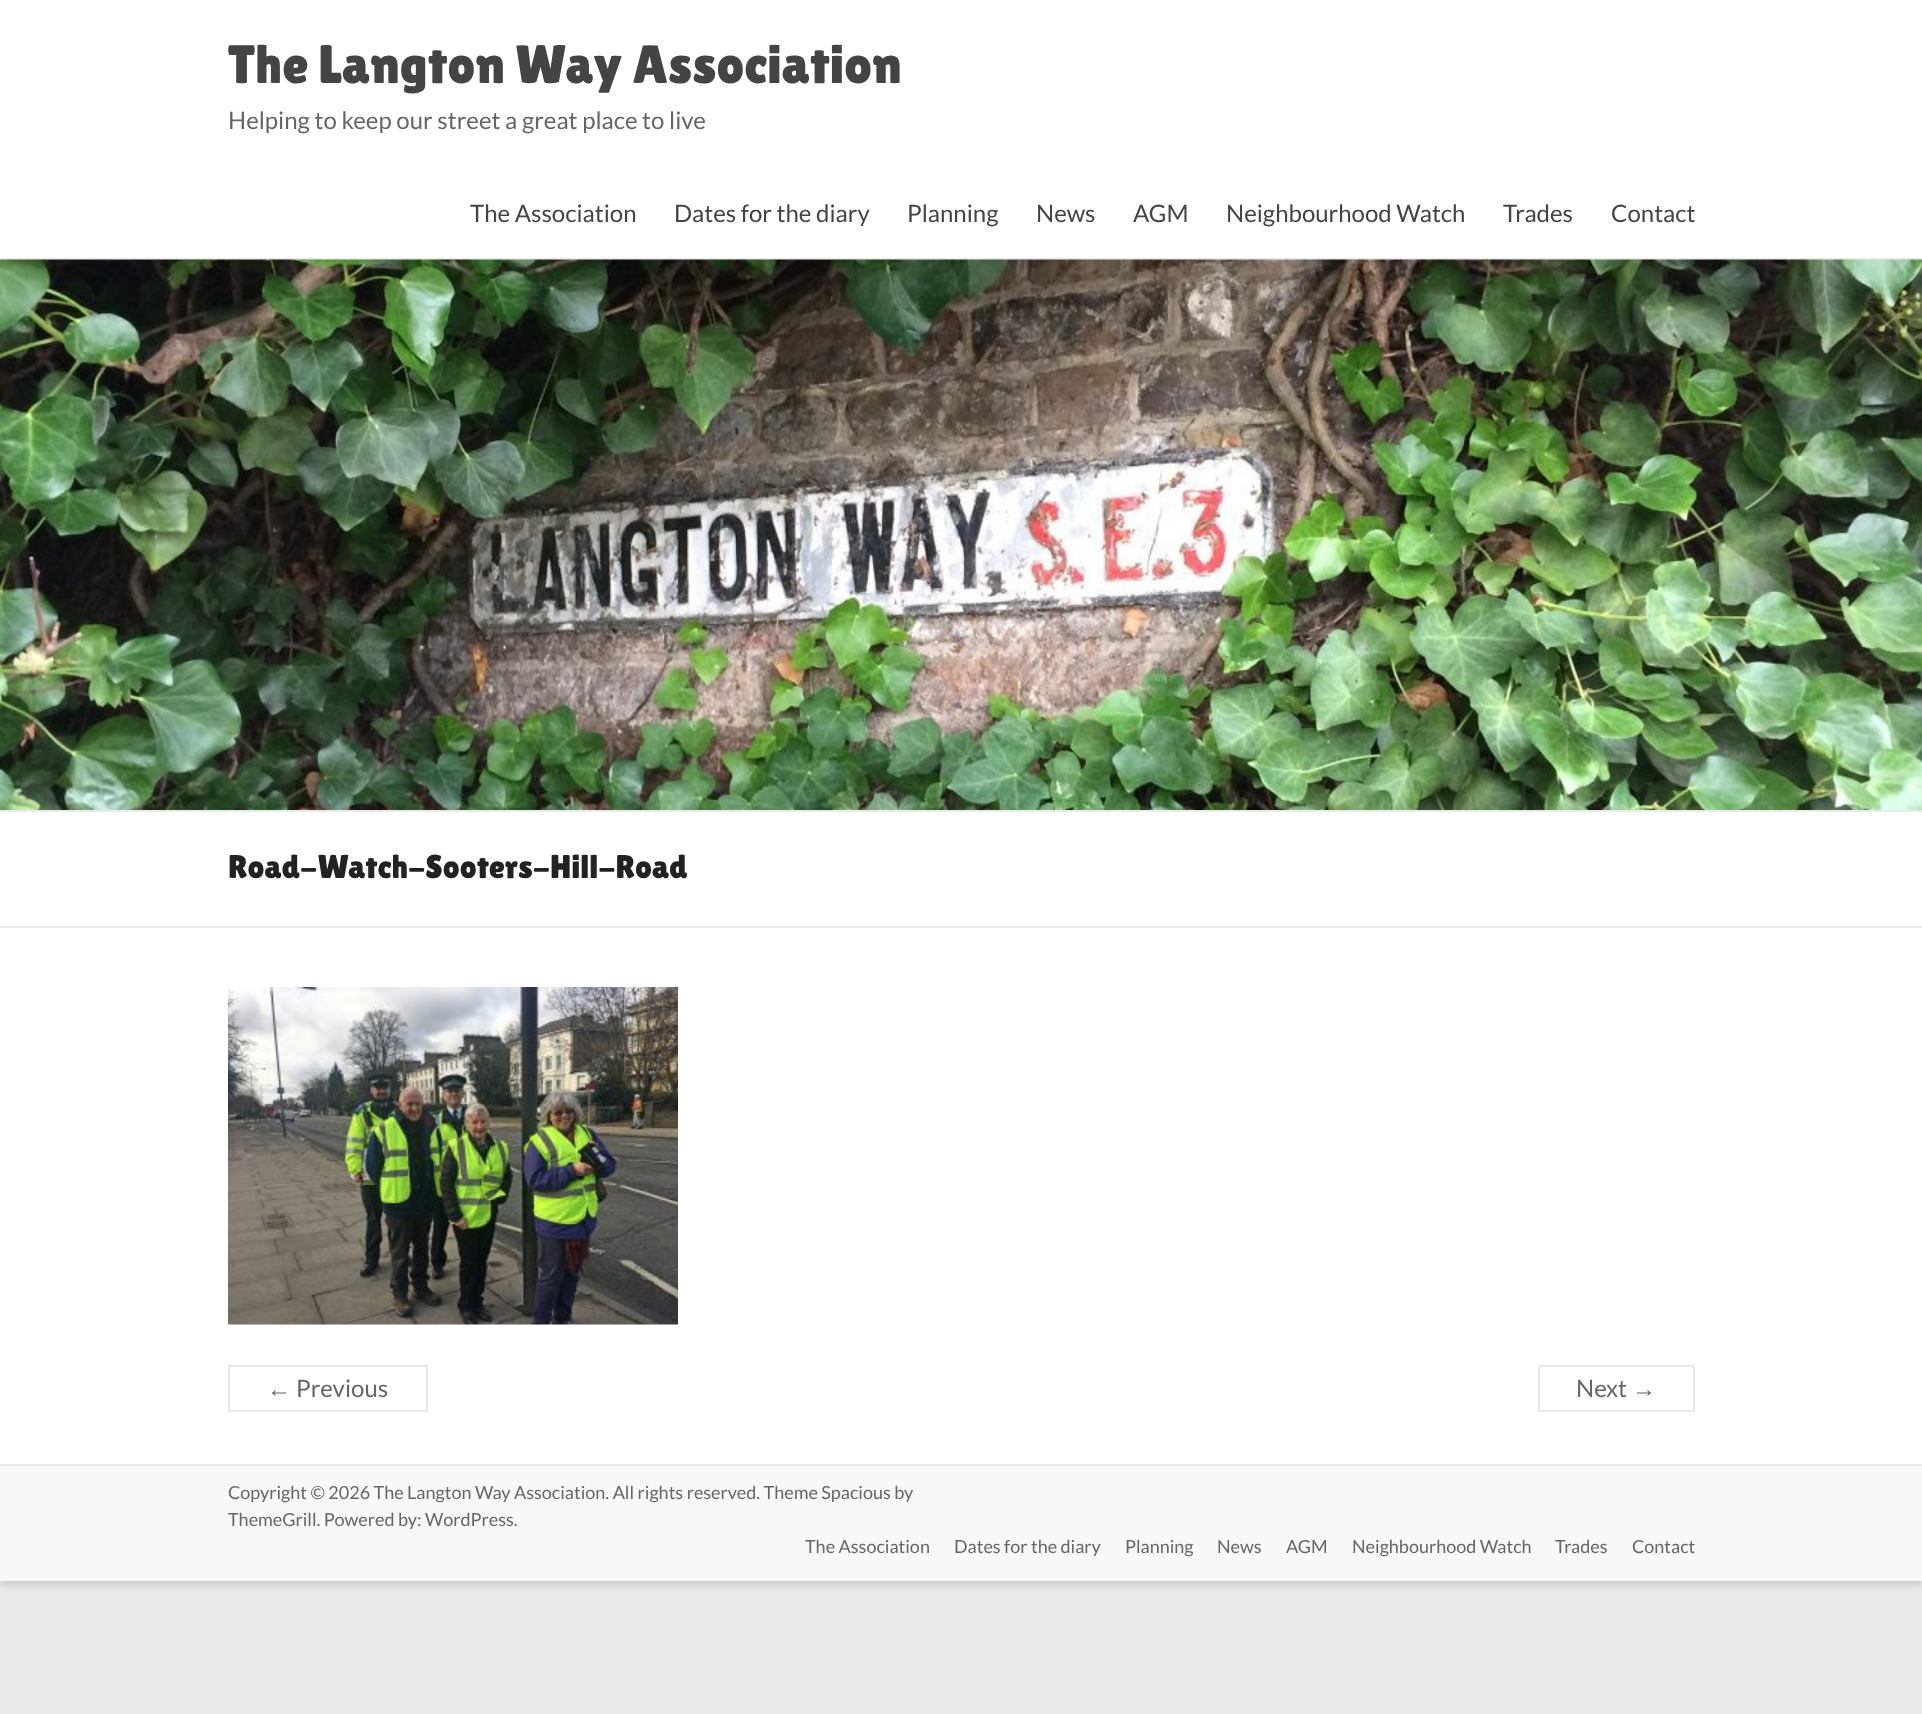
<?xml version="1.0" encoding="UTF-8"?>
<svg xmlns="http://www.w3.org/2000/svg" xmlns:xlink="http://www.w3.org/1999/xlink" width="1922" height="1714">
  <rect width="100%" height="100%" fill="#eaeaea" />
  <rect y="3" width="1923" height="1581" fill="#646464" fill-opacity="0.3" filter="blur(4.5px)" />
  <rect width="1922" height="1464" fill="#ffffff" />
  <rect y="258" width="1922" height="2" fill="#eaeaea" />
  <image x="0" y="259" width="1922" height="551" xlink:href="image1.png" />
  <rect y="810" width="1922" height="2" fill="#eaeaea" />
  <rect y="926" width="1922" height="2" fill="#eaeaea" />
  <image x="228" y="987" width="450" height="338" xlink:href="image2.png" />
  <rect x="229" y="1366" width="198" height="45" fill="none" stroke="#eaeaea" stroke-width="2" />
  <rect x="1539" y="1366" width="155" height="45" fill="none" stroke="#eaeaea" stroke-width="2" />
  <rect y="1466" width="1922" height="115" fill="#f8f8f8" />
  <rect y="1464" width="1922" height="2" fill="#eaeaea" />
  <text x="228" y="83" style="font-family: Lilita One; font-size: 54px; fill: #444444">The Langton Way Association</text>
  <text x="228" y="129" style="font-family: Lato; font-size: 24px; fill: #666666">Helping to keep our street a great place to live</text>
  <text x="470" y="222" style="font-family: Lato; font-size: 24px; fill: #444444">The Association</text>
  <text x="674" y="222" style="font-family: Lato; font-size: 24px; fill: #444444">Dates for the diary</text>
  <text x="907" y="222" style="font-family: Lato; font-size: 24px; fill: #444444">Planning</text>
  <text x="1036" y="222" style="font-family: Lato; font-size: 24px; fill: #444444">News</text>
  <text x="1133" y="222" style="font-family: Lato; font-size: 24px; fill: #444444">AGM</text>
  <text x="1226" y="222" style="font-family: Lato; font-size: 24px; fill: #444444">Neighbourhood Watch</text>
  <text x="1503" y="222" style="font-family: Lato; font-size: 24px; fill: #444444">Trades</text>
  <text x="1611" y="222" style="font-family: Lato; font-size: 24px; fill: #444444">Contact</text>
  <text x="228" y="878" style="font-family: Lilita One; font-size: 33px; fill: #222222">Road-Watch-Sooters-Hill-Road</text>
  <text x="267" y="1397" style="font-family: Liberation Sans; font-size: 24px; fill: #666666">←</text>
  <text x="296" y="1397" style="font-family: Lato; font-size: 24px; fill: #666666">Previous</text>
  <text x="1576" y="1397" style="font-family: Lato; font-size: 24px; fill: #666666">Next</text>
  <text x="1632" y="1397" style="font-family: Liberation Sans; font-size: 24px; fill: #666666">→</text>
  <text x="228" y="1499" style="font-family: Lato; font-size: 18px; fill: #666666">Copyright © 2026 The Langton Way Association. All rights reserved. Theme Spacious by</text>
  <text x="228" y="1526" style="font-family: Lato; font-size: 18px; fill: #666666">ThemeGrill. Powered by: WordPress.</text>
  <text x="805" y="1553" style="font-family: Lato; font-size: 18px; fill: #666666">The Association</text>
  <text x="954" y="1553" style="font-family: Lato; font-size: 18px; fill: #666666">Dates for the diary</text>
  <text x="1125" y="1553" style="font-family: Lato; font-size: 18px; fill: #666666">Planning</text>
  <text x="1217" y="1553" style="font-family: Lato; font-size: 18px; fill: #666666">News</text>
  <text x="1286" y="1553" style="font-family: Lato; font-size: 18px; fill: #666666">AGM</text>
  <text x="1352" y="1553" style="font-family: Lato; font-size: 18px; fill: #666666">Neighbourhood Watch</text>
  <text x="1555" y="1553" style="font-family: Lato; font-size: 18px; fill: #666666">Trades</text>
  <text x="1632" y="1553" style="font-family: Lato; font-size: 18px; fill: #666666">Contact</text>
</svg>
